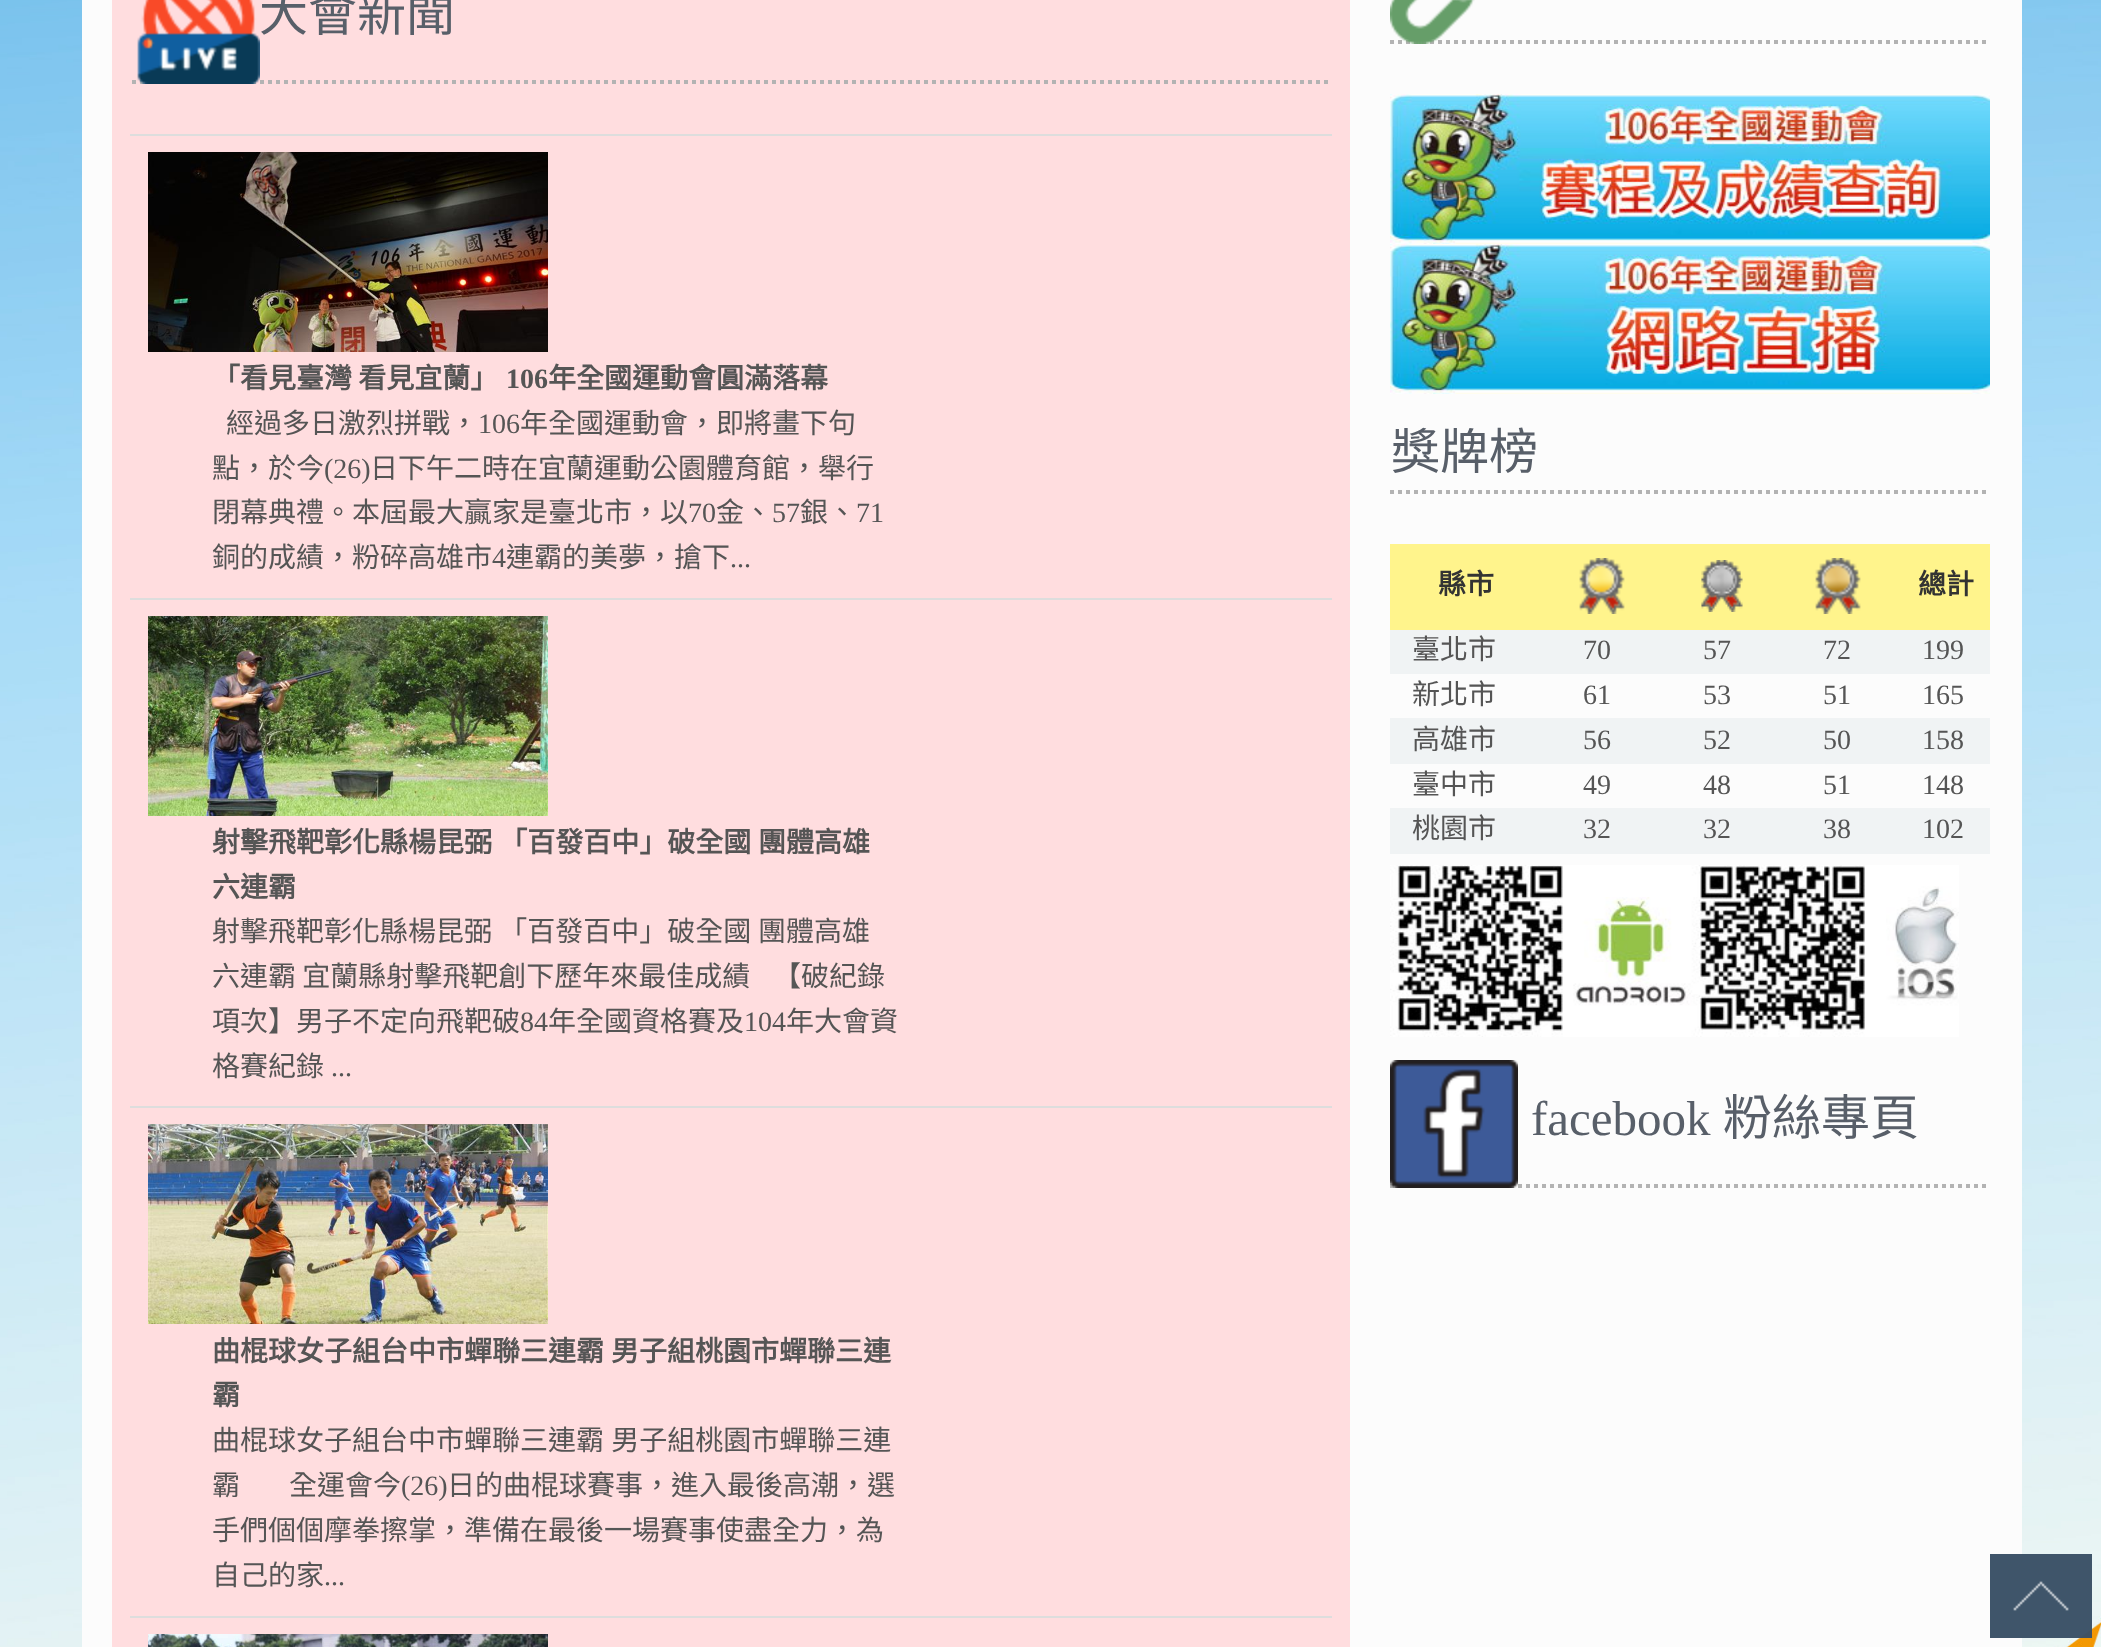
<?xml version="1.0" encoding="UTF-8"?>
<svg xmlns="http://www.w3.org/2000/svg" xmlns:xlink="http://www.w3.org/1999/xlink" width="2101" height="1647">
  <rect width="100%" height="100%" fill="#ffffff" />
  <image x="0" y="0" width="2101" height="1647" xlink:href="image1.png" />
  <rect x="82" width="1940" height="1647" fill="#fcfcfc" />
  <rect x="112" width="1238" height="1647" fill="#ffdddf" />
  <path d="M 132 82 h 1198" fill="none" stroke="#b3b3b3" stroke-width="4" stroke-dasharray="4 4" />
  <image x="137" y="0" width="123" height="84" xlink:href="image2.png" />
  <rect x="130" y="134" width="1202" height="2" fill="#dddddd" />
  <image x="148" y="152" width="400" height="200" xlink:href="image3.png" />
  <rect x="130" y="598" width="1202" height="2" fill="#dddddd" />
  <image x="148" y="616" width="400" height="200" xlink:href="image4.png" />
  <rect x="130" y="1106" width="1202" height="2" fill="#dddddd" />
  <image x="148" y="1124" width="400" height="200" xlink:href="image5.png" />
  <rect x="130" y="1616" width="1202" height="2" fill="#dddddd" />
  <image x="148" y="1634" width="400" height="13" xlink:href="image6.png" />
  <path d="M 1390 42 h 600" fill="none" stroke="#b3b3b3" stroke-width="4" stroke-dasharray="4 4" />
  <image x="1390" y="0" width="85" height="44" xlink:href="image7.png" />
  <image x="1390" y="94" width="600" height="150" xlink:href="image8.png" />
  <image x="1390" y="244" width="600" height="150" xlink:href="image9.png" />
  <path d="M 1390 492 h 600" fill="none" stroke="#b3b3b3" stroke-width="4" stroke-dasharray="4 4" />
  <rect x="1390" y="544" width="600" height="86" fill="#fff48c" />
  <image x="1579" y="558" width="46" height="56" xlink:href="image10.png" />
  <image x="1701" y="560" width="42" height="52" xlink:href="image11.png" />
  <image x="1815" y="558" width="46" height="56" xlink:href="image12.png" />
  <rect x="1390" y="630" width="600" height="44" fill="#f0f3f4" />
  <rect x="1390" y="718" width="600" height="46" fill="#f0f3f4" />
  <rect x="1390" y="808" width="600" height="46" fill="#f0f3f4" />
  <image x="1390" y="865" width="569" height="172" xlink:href="image13.png" />
  <path d="M 1390 1186 h 600" fill="none" stroke="#b3b3b3" stroke-width="4" stroke-dasharray="4 4" />
  <image x="1390" y="1060" width="128" height="128" xlink:href="image14.png" />
  <image x="1990" y="1554" width="102" height="84" xlink:href="image15.png" />
  <text x="259" y="31" style="font-family: Noto Sans CJK TC; font-size: 49px; fill: #585f69">大會新聞</text>
  <text x="212" y="388" style="font-family: Noto Sans CJK TC; font-size: 28px; font-weight: bold; fill: #555555">「看見臺灣 看見宜蘭」</text>
  <text x="506" y="388" style="font-family: Liberation Serif; font-size: 28px; font-weight: bold; fill: #555555">106</text>
  <text x="548" y="388" style="font-family: Noto Sans CJK TC; font-size: 28px; font-weight: bold; fill: #555555">年全國運動會圓滿落幕</text>
  <text x="226" y="433" style="font-family: Noto Sans CJK TC; font-size: 28px; fill: #555555">經過多日激烈拼戰，</text>
  <text x="478" y="433" style="font-family: Liberation Serif; font-size: 28px; fill: #555555">106</text>
  <text x="520" y="433" style="font-family: Noto Sans CJK TC; font-size: 28px; fill: #555555">年全國運動會，即將畫下句</text>
  <text x="212" y="478" style="font-family: Noto Sans CJK TC; font-size: 28px; fill: #555555">點，於今</text>
  <text x="324" y="478" style="font-family: Liberation Serif; font-size: 28px; fill: #555555">(26)</text>
  <text x="370" y="478" style="font-family: Noto Sans CJK TC; font-size: 28px; fill: #555555">日下午二時在宜蘭運動公園體育館，舉行</text>
  <text x="212" y="522" style="font-family: Noto Sans CJK TC; font-size: 28px; fill: #555555">閉幕典禮。本屆最大贏家是臺北市，以</text>
  <text x="688" y="522" style="font-family: Liberation Serif; font-size: 28px; fill: #555555">70</text>
  <text x="716" y="522" style="font-family: Noto Sans CJK TC; font-size: 28px; fill: #555555">金、</text>
  <text x="772" y="522" style="font-family: Liberation Serif; font-size: 28px; fill: #555555">57</text>
  <text x="800" y="522" style="font-family: Noto Sans CJK TC; font-size: 28px; fill: #555555">銀、</text>
  <text x="856" y="522" style="font-family: Liberation Serif; font-size: 28px; fill: #555555">71</text>
  <text x="212" y="567" style="font-family: Noto Sans CJK TC; font-size: 28px; fill: #555555">銅的成績，粉碎高雄市</text>
  <text x="492" y="567" style="font-family: Liberation Serif; font-size: 28px; fill: #555555">4</text>
  <text x="506" y="567" style="font-family: Noto Sans CJK TC; font-size: 28px; fill: #555555">連霸的美夢，搶下</text>
  <text x="730" y="567" style="font-family: Liberation Serif; font-size: 28px; fill: #555555">...</text>
  <text x="212" y="852" word-spacing="1" style="font-family: Noto Sans CJK TC; font-size: 28px; font-weight: bold; fill: #555555">射擊飛靶彰化縣楊昆弼 「百發百中」破全國</text>
  <text x="758" y="852" style="font-family: Noto Sans CJK TC; font-size: 28px; font-weight: bold; fill: #555555">團體高雄</text>
  <text x="212" y="897" style="font-family: Noto Sans CJK TC; font-size: 28px; font-weight: bold; fill: #555555">六連霸</text>
  <text x="212" y="941" word-spacing="1" style="font-family: Noto Sans CJK TC; font-size: 28px; fill: #555555">射擊飛靶彰化縣楊昆弼 「百發百中」破全國</text>
  <text x="758" y="941" style="font-family: Noto Sans CJK TC; font-size: 28px; fill: #555555">團體高雄</text>
  <text x="212" y="986" style="font-family: Noto Sans CJK TC; font-size: 28px; fill: #555555">六連霸 宜蘭縣射擊飛靶創下歷年來最佳成績</text>
  <text x="773" y="986" style="font-family: Noto Sans CJK TC; font-size: 28px; fill: #555555">【破紀錄</text>
  <text x="212" y="1031" style="font-family: Noto Sans CJK TC; font-size: 28px; fill: #555555">項次】男子不定向飛靶破</text>
  <text x="520" y="1031" style="font-family: Liberation Serif; font-size: 28px; fill: #555555">84</text>
  <text x="548" y="1031" style="font-family: Noto Sans CJK TC; font-size: 28px; fill: #555555">年全國資格賽及</text>
  <text x="744" y="1031" style="font-family: Liberation Serif; font-size: 28px; fill: #555555">104</text>
  <text x="786" y="1031" style="font-family: Noto Sans CJK TC; font-size: 28px; fill: #555555">年大會資</text>
  <text x="212" y="1076" style="font-family: Noto Sans CJK TC; font-size: 28px; fill: #555555">格賽紀錄</text>
  <text x="331" y="1076" style="font-family: Liberation Serif; font-size: 28px; fill: #555555">...</text>
  <text x="212" y="1361" style="font-family: Noto Sans CJK TC; font-size: 28px; font-weight: bold; fill: #555555">曲棍球女子組台中市蟬聯三連霸</text>
  <text x="611" y="1361" style="font-family: Noto Sans CJK TC; font-size: 28px; font-weight: bold; fill: #555555">男子組桃園市蟬聯三連</text>
  <text x="212" y="1405" style="font-family: Noto Sans CJK TC; font-size: 28px; font-weight: bold; fill: #555555">霸</text>
  <text x="212" y="1450" word-spacing="1" style="font-family: Noto Sans CJK TC; font-size: 28px; fill: #555555">曲棍球女子組台中市蟬聯三連霸 男子組桃園市蟬聯三連</text>
  <text x="212" y="1495" style="font-family: Noto Sans CJK TC; font-size: 28px; fill: #555555">霸</text>
  <text x="289" y="1495" style="font-family: Noto Sans CJK TC; font-size: 28px; fill: #555555">全運會今</text>
  <text x="401" y="1495" style="font-family: Liberation Serif; font-size: 28px; fill: #555555">(26)</text>
  <text x="447" y="1495" style="font-family: Noto Sans CJK TC; font-size: 28px; fill: #555555">日的曲棍球賽事，進入最後高潮，選</text>
  <text x="212" y="1540" style="font-family: Noto Sans CJK TC; font-size: 28px; fill: #555555">手們個個摩拳擦掌，準備在最後一場賽事使盡全力，為</text>
  <text x="212" y="1585" style="font-family: Noto Sans CJK TC; font-size: 28px; fill: #555555">自己的家</text>
  <text x="324" y="1585" style="font-family: Liberation Serif; font-size: 28px; fill: #555555">...</text>
  <text x="1391" y="469" style="font-family: Noto Sans CJK TC; font-size: 49px; fill: #585f69">獎牌榜</text>
  <text x="1438" y="594" style="font-family: Noto Sans CJK TC; font-size: 28px; font-weight: bold; fill: #333333">縣市</text>
  <text x="1918" y="594" style="font-family: Noto Sans CJK TC; font-size: 28px; font-weight: bold; fill: #333333">總計</text>
  <text x="1412" y="659" style="font-family: Noto Sans CJK TC; font-size: 28px; fill: #555555">臺北市</text>
  <text x="1583" y="659" style="font-family: Liberation Serif; font-size: 28px; fill: #555555">70</text>
  <text x="1703" y="659" style="font-family: Liberation Serif; font-size: 28px; fill: #555555">57</text>
  <text x="1823" y="659" style="font-family: Liberation Serif; font-size: 28px; fill: #555555">72</text>
  <text x="1922" y="659" style="font-family: Liberation Serif; font-size: 28px; fill: #555555">199</text>
  <text x="1412" y="704" style="font-family: Noto Sans CJK TC; font-size: 28px; fill: #555555">新北市</text>
  <text x="1583" y="704" style="font-family: Liberation Serif; font-size: 28px; fill: #555555">61</text>
  <text x="1703" y="704" style="font-family: Liberation Serif; font-size: 28px; fill: #555555">53</text>
  <text x="1823" y="704" style="font-family: Liberation Serif; font-size: 28px; fill: #555555">51</text>
  <text x="1922" y="704" style="font-family: Liberation Serif; font-size: 28px; fill: #555555">165</text>
  <text x="1412" y="749" style="font-family: Noto Sans CJK TC; font-size: 28px; fill: #555555">高雄市</text>
  <text x="1583" y="749" style="font-family: Liberation Serif; font-size: 28px; fill: #555555">56</text>
  <text x="1703" y="749" style="font-family: Liberation Serif; font-size: 28px; fill: #555555">52</text>
  <text x="1823" y="749" style="font-family: Liberation Serif; font-size: 28px; fill: #555555">50</text>
  <text x="1922" y="749" style="font-family: Liberation Serif; font-size: 28px; fill: #555555">158</text>
  <text x="1412" y="794" style="font-family: Noto Sans CJK TC; font-size: 28px; fill: #555555">臺中市</text>
  <text x="1583" y="794" style="font-family: Liberation Serif; font-size: 28px; fill: #555555">49</text>
  <text x="1703" y="794" style="font-family: Liberation Serif; font-size: 28px; fill: #555555">48</text>
  <text x="1823" y="794" style="font-family: Liberation Serif; font-size: 28px; fill: #555555">51</text>
  <text x="1922" y="794" style="font-family: Liberation Serif; font-size: 28px; fill: #555555">148</text>
  <text x="1412" y="838" style="font-family: Noto Sans CJK TC; font-size: 28px; fill: #555555">桃園市</text>
  <text x="1583" y="838" style="font-family: Liberation Serif; font-size: 28px; fill: #555555">32</text>
  <text x="1703" y="838" style="font-family: Liberation Serif; font-size: 28px; fill: #555555">32</text>
  <text x="1823" y="838" style="font-family: Liberation Serif; font-size: 28px; fill: #555555">38</text>
  <text x="1922" y="838" style="font-family: Liberation Serif; font-size: 28px; fill: #555555">102</text>
  <text x="1531" y="1135" style="font-family: Liberation Serif; font-size: 49px; fill: #585f69">facebook</text>
  <text x="1723" y="1135" style="font-family: Noto Sans CJK TC; font-size: 49px; fill: #585f69">粉絲專頁</text>
</svg>
